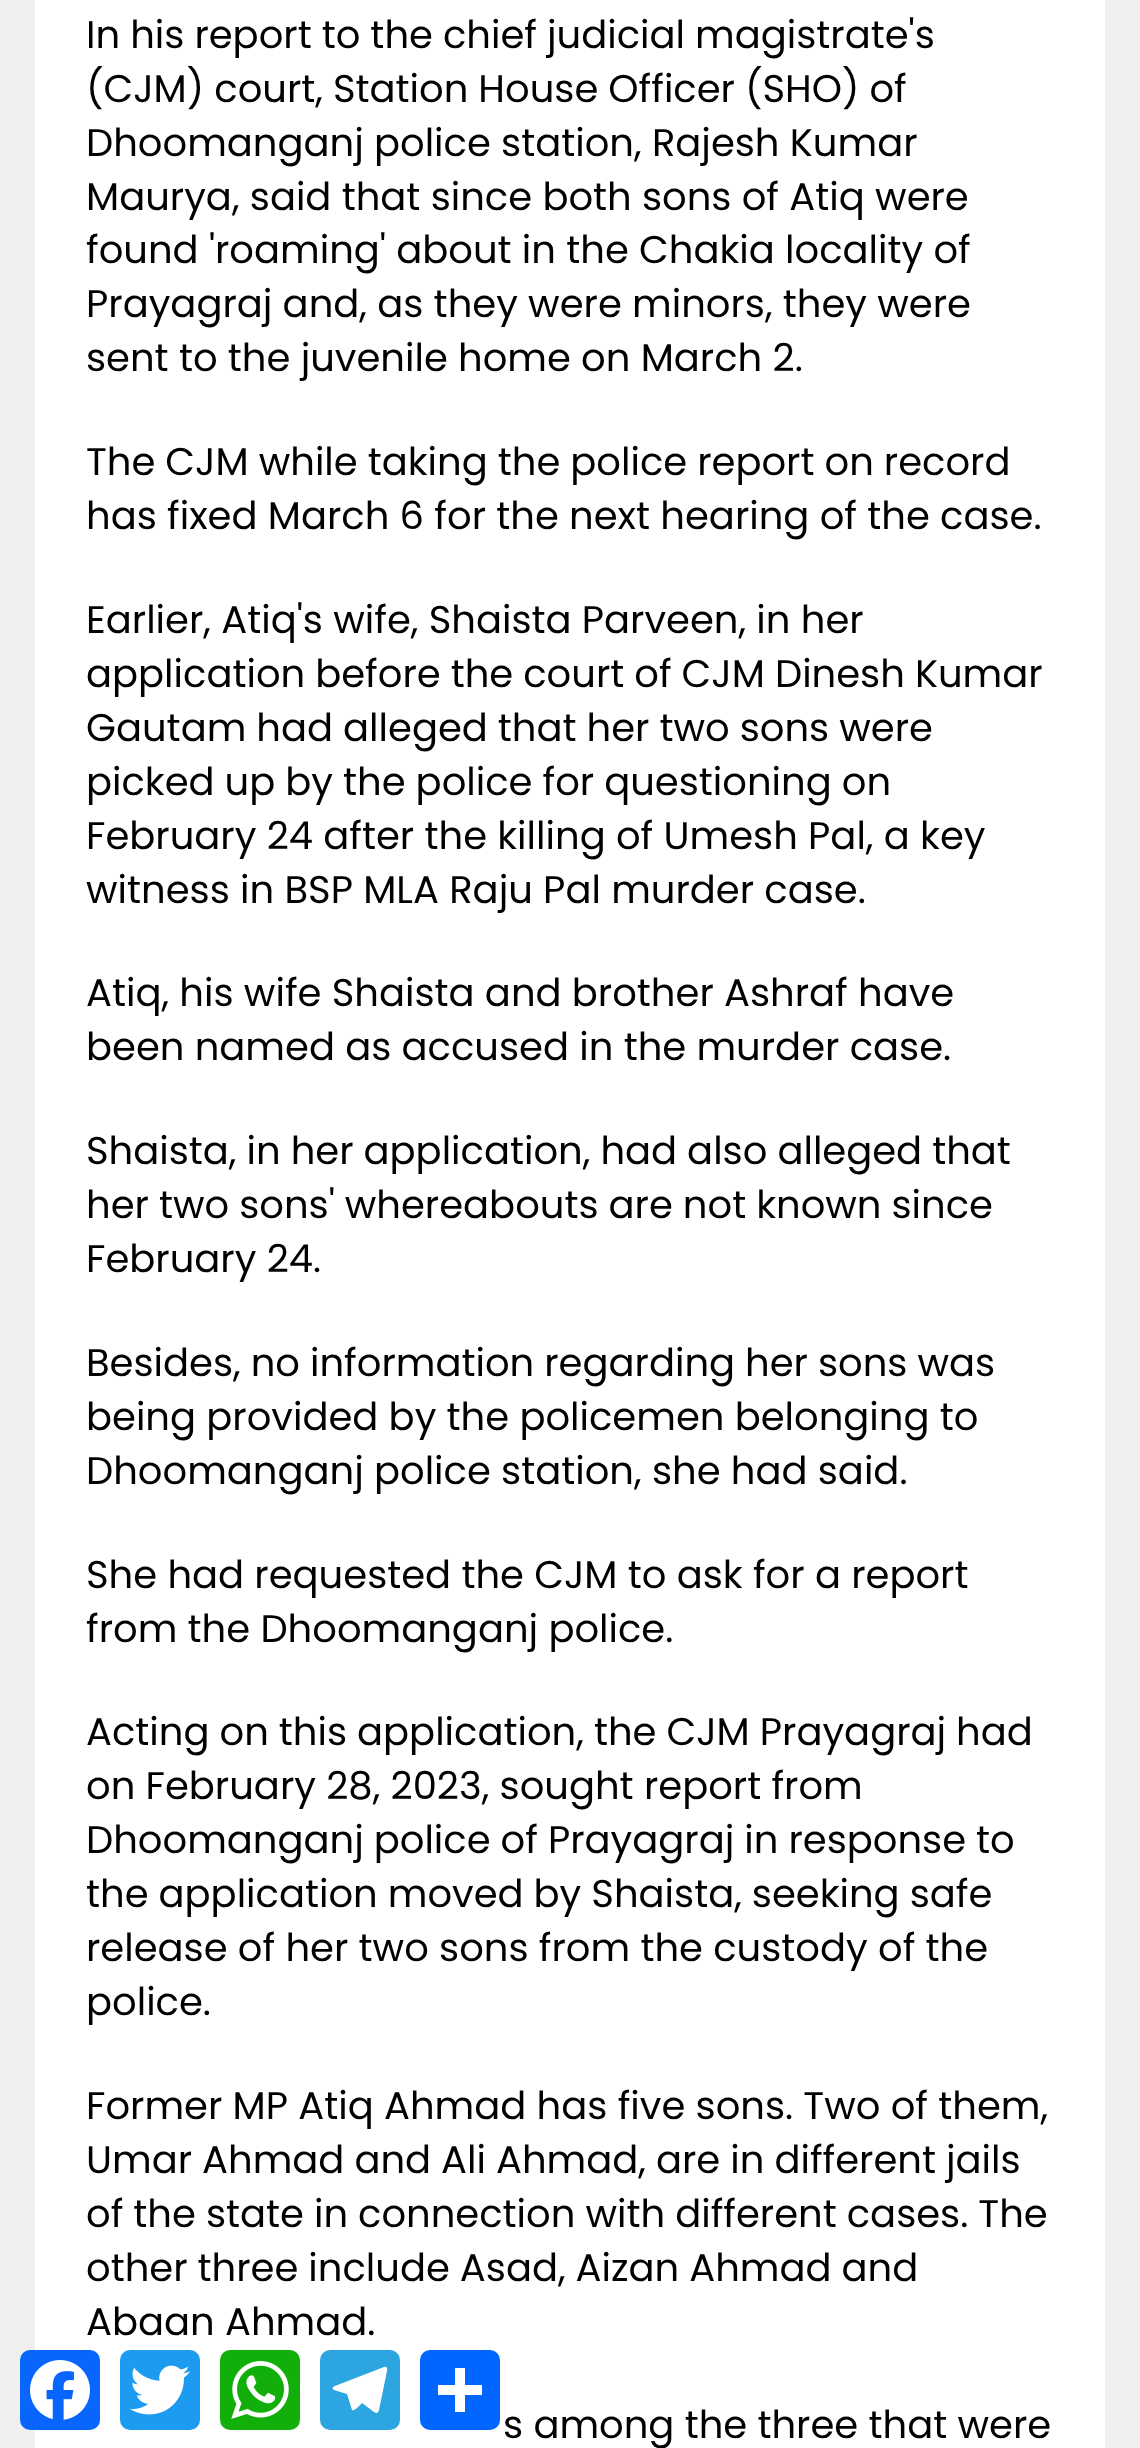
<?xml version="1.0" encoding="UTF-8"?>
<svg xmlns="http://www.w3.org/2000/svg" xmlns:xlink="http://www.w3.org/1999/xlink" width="1140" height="2448">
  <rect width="100%" height="100%" fill="#efefef" />
  <rect x="35" width="1070" height="2448" fill="#ffffff" />
  <rect x="20" y="2350" width="80" height="80" rx="10" fill="#0866ff" />
  <image x="30" y="2360" width="60" height="60" xlink:href="image1.png" />
  <rect x="120" y="2350" width="80" height="80" rx="10" fill="#1d9bf0" />
  <image x="130" y="2365" width="60" height="50" xlink:href="image2.png" />
  <rect x="220" y="2350" width="80" height="80" rx="10" fill="#12af0a" />
  <image x="231" y="2361" width="58" height="58" xlink:href="image3.png" />
  <rect x="320" y="2350" width="80" height="80" rx="10" fill="#2ca5e0" />
  <path d="M 384 2367 l -49 19 c -3 1 -3 3 -1 4 l 13 4 l 5 16 c 2 2 9 -6 10 -7 l 12 9 c 3 2 4 1 5 -2 l 8 -39 c 1 -3 -1 -5 -3 -4 z" fill="#ffffff" />
  <rect x="420" y="2350" width="80" height="80" rx="10" fill="#0166ff" />
  <rect x="455" y="2368" width="10" height="44" fill="#ffffff" />
  <rect x="438" y="2385" width="44" height="10" fill="#ffffff" />
  <text x="86" y="48" word-spacing="-0.25" style="font-family: Poppins; font-size: 38.5px; fill: #000000">In his report to the chief judicial magistrate's</text>
  <text x="86" y="102" word-spacing="-0.25" style="font-family: Poppins; font-size: 38.5px; fill: #000000">(CJM) court, Station House Officer (SHO) of</text>
  <text x="86" y="156" style="font-family: Poppins; font-size: 38.5px; fill: #000000">Dhoomanganj police station, Rajesh Kumar</text>
  <text x="86" y="210" style="font-family: Poppins; font-size: 38.5px; fill: #000000">Maurya, said that since both sons of Atiq were</text>
  <text x="86" y="263" style="font-family: Poppins; font-size: 38.5px; fill: #000000">found 'roaming' about in the Chakia locality of</text>
  <text x="86" y="317" style="font-family: Poppins; font-size: 38.5px; fill: #000000">Prayagraj and, as they were minors, they were</text>
  <text x="86" y="371" style="font-family: Poppins; font-size: 38.5px; fill: #000000">sent to the juvenile home on March 2.</text>
  <text x="86" y="475" word-spacing="-0.25" style="font-family: Poppins; font-size: 38.5px; fill: #000000">The CJM while taking the police report on record</text>
  <text x="86" y="529" style="font-family: Poppins; font-size: 38.5px; fill: #000000">has fixed March 6 for the next hearing of the case.</text>
  <text x="86" y="633" style="font-family: Poppins; font-size: 38.5px; fill: #000000">Earlier, Atiq's wife, Shaista Parveen, in her</text>
  <text x="86" y="687" word-spacing="-0.25" style="font-family: Poppins; font-size: 38.5px; fill: #000000">application before the court of CJM Dinesh Kumar</text>
  <text x="86" y="741" word-spacing="-0.25" style="font-family: Poppins; font-size: 38.5px; fill: #000000">Gautam had alleged that her two sons were</text>
  <text x="86" y="795" word-spacing="-0.25" style="font-family: Poppins; font-size: 38.5px; fill: #000000">picked up by the police for questioning on</text>
  <text x="86" y="849" style="font-family: Poppins; font-size: 38.5px; fill: #000000">February 24 after the killing of Umesh Pal, a key</text>
  <text x="86" y="903" style="font-family: Poppins; font-size: 38.5px; fill: #000000">witness in BSP MLA Raju Pal murder case.</text>
  <text x="86" y="1006" style="font-family: Poppins; font-size: 38.5px; fill: #000000">Atiq, his wife Shaista and brother Ashraf have</text>
  <text x="86" y="1060" style="font-family: Poppins; font-size: 38.5px; fill: #000000">been named as accused in the murder case.</text>
  <text x="86" y="1164" word-spacing="-0.25" style="font-family: Poppins; font-size: 38.5px; fill: #000000">Shaista, in her application, had also alleged that</text>
  <text x="86" y="1218" word-spacing="-0.25" style="font-family: Poppins; font-size: 38.5px; fill: #000000">her two sons' whereabouts are not known since</text>
  <text x="86" y="1272" style="font-family: Poppins; font-size: 38.5px; fill: #000000">February 24.</text>
  <text x="86" y="1376" word-spacing="-0.25" style="font-family: Poppins; font-size: 38.5px; fill: #000000">Besides, no information regarding her sons was</text>
  <text x="86" y="1430" style="font-family: Poppins; font-size: 38.5px; fill: #000000">being provided by the policemen belonging to</text>
  <text x="86" y="1484" style="font-family: Poppins; font-size: 38.5px; fill: #000000">Dhoomanganj police station, she had said.</text>
  <text x="86" y="1588" style="font-family: Poppins; font-size: 38.5px; fill: #000000">She had requested the CJM to ask for a report</text>
  <text x="86" y="1642" style="font-family: Poppins; font-size: 38.5px; fill: #000000">from the Dhoomanganj police.</text>
  <text x="86" y="1745" word-spacing="-0.25" style="font-family: Poppins; font-size: 38.5px; fill: #000000">Acting on this application, the CJM Prayagraj had</text>
  <text x="86" y="1799" style="font-family: Poppins; font-size: 38.5px; fill: #000000">on February 28, 2023, sought report from</text>
  <text x="86" y="1853" word-spacing="-0.25" style="font-family: Poppins; font-size: 38.5px; fill: #000000">Dhoomanganj police of Prayagraj in response to</text>
  <text x="86" y="1907" word-spacing="-0.25" style="font-family: Poppins; font-size: 38.5px; fill: #000000">the application moved by Shaista, seeking safe</text>
  <text x="86" y="1961" style="font-family: Poppins; font-size: 38.5px; fill: #000000">release of her two sons from the custody of the</text>
  <text x="86" y="2015" style="font-family: Poppins; font-size: 38.5px; fill: #000000">police.</text>
  <text x="86" y="2119" style="font-family: Poppins; font-size: 38.5px; fill: #000000">Former MP Atiq Ahmad has five sons. Two of them,</text>
  <text x="86" y="2173" word-spacing="-0.25" style="font-family: Poppins; font-size: 38.5px; fill: #000000">Umar Ahmad and Ali Ahmad, are in different jails</text>
  <text x="86" y="2227" word-spacing="-0.25" style="font-family: Poppins; font-size: 38.5px; fill: #000000">of the state in connection with different cases. The</text>
  <text x="86" y="2281" word-spacing="-0.25" style="font-family: Poppins; font-size: 38.5px; fill: #000000">other three include Asad, Aizan Ahmad and</text>
  <text x="86" y="2335" style="font-family: Poppins; font-size: 38.5px; fill: #000000">Abaan Ahmad.</text>
  <text x="503" y="2438" style="font-family: Poppins; font-size: 38.5px; fill: #000000">s among the three that were</text>
</svg>
